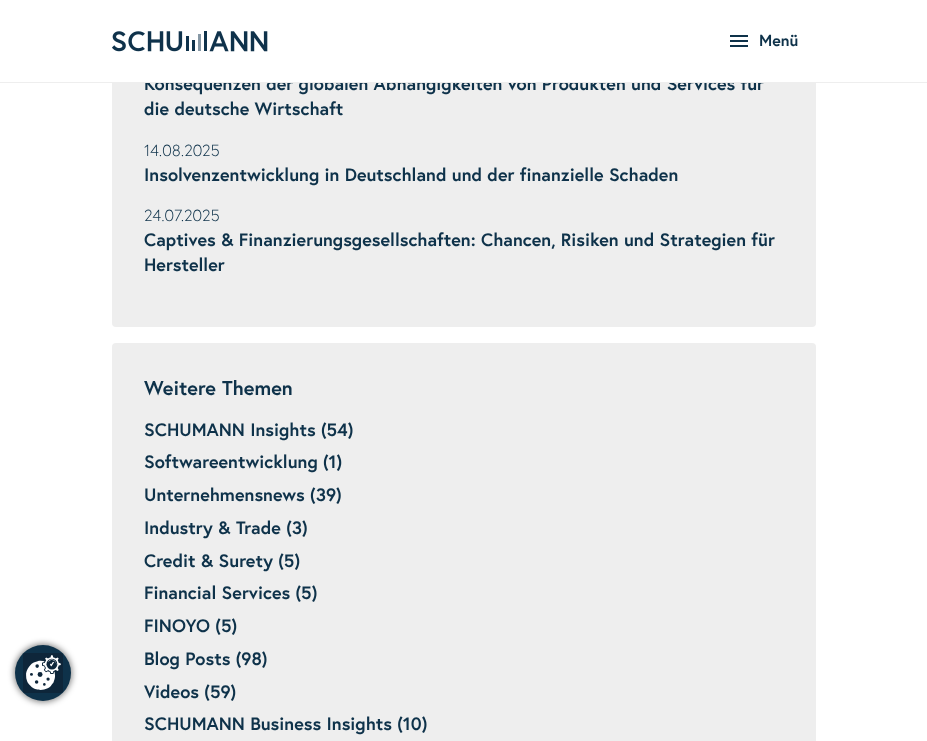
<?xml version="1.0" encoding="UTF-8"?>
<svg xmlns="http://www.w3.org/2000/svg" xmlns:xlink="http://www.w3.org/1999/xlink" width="927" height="741">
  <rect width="100%" height="100%" fill="#ffffff" />
  <rect x="14" y="644" width="58" height="58" rx="29" fill="#000000" fill-opacity="0.5" filter="blur(3px)" />
  <circle cx="43" cy="673" r="28" fill="#0e324a" />
  <image x="23" y="653" width="40" height="40" xlink:href="image1.png" />
  <rect x="112" y="-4" width="704" height="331" rx="4" fill="#eeeeee" />
  <rect x="112" y="343" width="704" height="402" rx="4" fill="#eeeeee" />
  <text x="144" y="90" style="font-family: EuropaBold; font-size: 18px; font-weight: bold; fill: #0e324a">Konsequenzen der globalen Abhängigkeiten von Produkten und Services für</text>
  <rect x="112" width="704" height="82" fill="#ffffff" />
  <image x="730" y="35" width="18" height="12" xlink:href="image3.png" />
  <image x="112" y="31" width="156" height="21" xlink:href="image2.png" />
  <text x="759" y="46" style="font-family: EuropaBold; font-size: 16px; font-weight: bold; fill: #0e324a">Menü</text>
  <rect y="82" width="927" height="1" fill="#eeeeee" />
  <text x="144" y="115" style="font-family: EuropaBold; font-size: 18px; font-weight: bold; fill: #0e324a">die deutsche Wirtschaft</text>
  <text x="144" y="156" style="font-family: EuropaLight; font-size: 16px; font-weight: 300; fill: #0e324a">14.08.2025</text>
  <text x="144" y="181" style="font-family: EuropaBold; font-size: 18px; font-weight: bold; fill: #0e324a">Insolvenzentwicklung in Deutschland und der finanzielle Schaden</text>
  <text x="144" y="221" style="font-family: EuropaLight; font-size: 16px; font-weight: 300; fill: #0e324a">24.07.2025</text>
  <text x="144" y="246" style="font-family: EuropaBold; font-size: 18px; font-weight: bold; fill: #0e324a">Captives &amp; Finanzierungsgesellschaften: Chancen, Risiken und Strategien für</text>
  <text x="144" y="271" style="font-family: EuropaBold; font-size: 18px; font-weight: bold; fill: #0e324a">Hersteller</text>
  <text x="144" y="395" style="font-family: EuropaBold; font-size: 20px; font-weight: bold; fill: #0e324a">Weitere Themen</text>
  <text x="144" y="436" style="font-family: EuropaBold; font-size: 18px; font-weight: bold; fill: #0e324a">SCHUMANN Insights (54)</text>
  <text x="144" y="468" style="font-family: EuropaBold; font-size: 18px; font-weight: bold; fill: #0e324a">Softwareentwicklung (1)</text>
  <text x="144" y="501" style="font-family: EuropaBold; font-size: 18px; font-weight: bold; fill: #0e324a">Unternehmensnews (39)</text>
  <text x="144" y="534" style="font-family: EuropaBold; font-size: 18px; font-weight: bold; fill: #0e324a">Industry &amp; Trade (3)</text>
  <text x="144" y="567" style="font-family: EuropaBold; font-size: 18px; font-weight: bold; fill: #0e324a">Credit &amp; Surety (5)</text>
  <text x="144" y="599" style="font-family: EuropaBold; font-size: 18px; font-weight: bold; fill: #0e324a">Financial Services (5)</text>
  <text x="144" y="632" style="font-family: EuropaBold; font-size: 18px; font-weight: bold; fill: #0e324a">FINOYO (5)</text>
  <text x="144" y="665" style="font-family: EuropaBold; font-size: 18px; font-weight: bold; fill: #0e324a">Blog Posts (98)</text>
  <text x="144" y="698" style="font-family: EuropaBold; font-size: 18px; font-weight: bold; fill: #0e324a">Videos (59)</text>
  <text x="144" y="730" style="font-family: EuropaBold; font-size: 18px; font-weight: bold; fill: #0e324a">SCHUMANN Business Insights (10)</text>
</svg>
